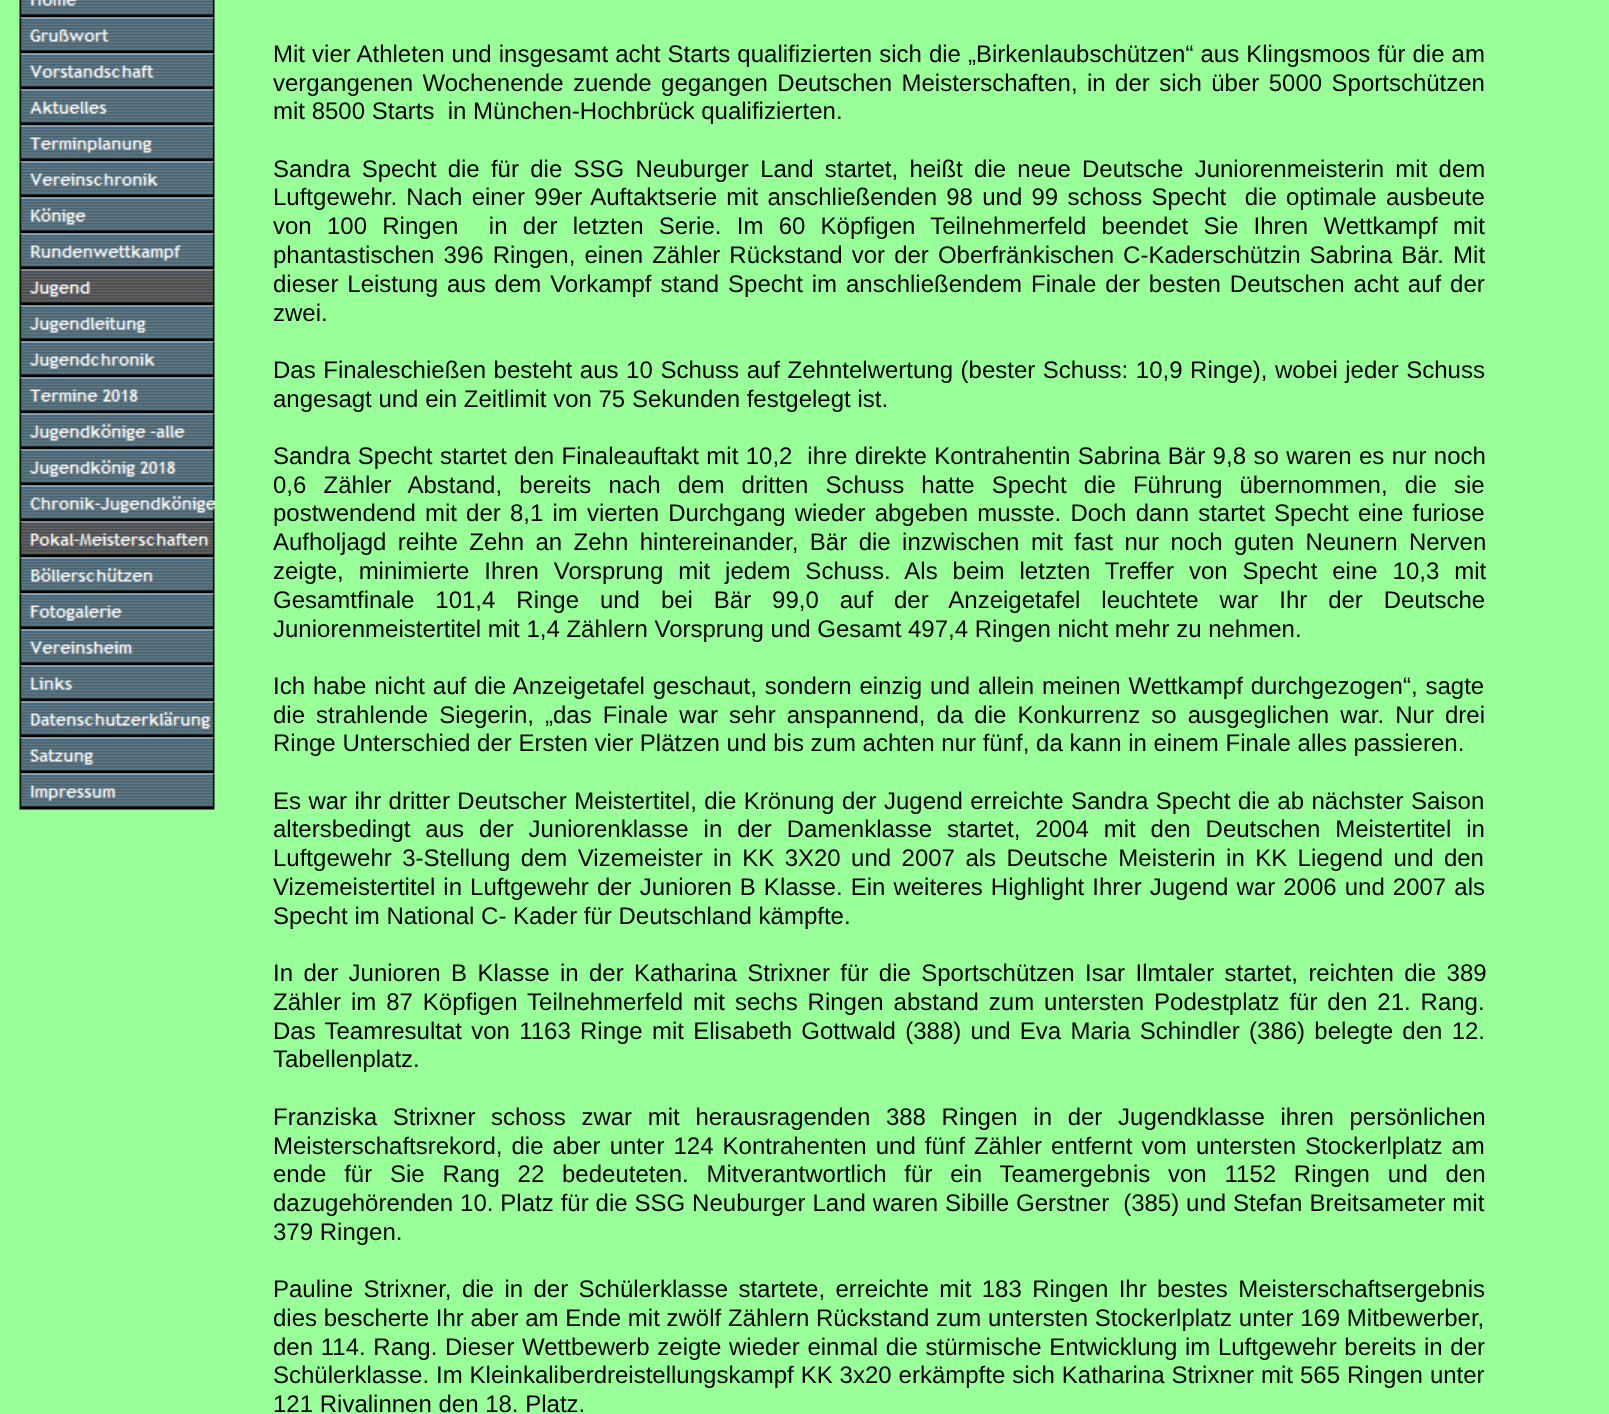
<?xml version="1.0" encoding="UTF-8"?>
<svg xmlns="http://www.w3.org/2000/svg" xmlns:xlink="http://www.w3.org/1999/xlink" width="1609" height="1414">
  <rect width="100%" height="100%" fill="#99ff99" />
  <image x="19" y="0" width="196" height="18" xlink:href="image1.png" />
  <image x="19" y="17" width="196" height="37" xlink:href="image2.png" />
  <image x="19" y="53" width="196" height="37" xlink:href="image3.png" />
  <image x="19" y="89" width="196" height="37" xlink:href="image4.png" />
  <image x="19" y="125" width="196" height="37" xlink:href="image5.png" />
  <image x="19" y="161" width="196" height="37" xlink:href="image6.png" />
  <image x="19" y="197" width="196" height="37" xlink:href="image7.png" />
  <image x="19" y="233" width="196" height="37" xlink:href="image8.png" />
  <image x="19" y="269" width="196" height="37" xlink:href="image9.png" />
  <image x="19" y="305" width="196" height="37" xlink:href="image10.png" />
  <image x="19" y="341" width="196" height="37" xlink:href="image11.png" />
  <image x="19" y="377" width="196" height="37" xlink:href="image12.png" />
  <image x="19" y="413" width="196" height="37" xlink:href="image13.png" />
  <image x="19" y="449" width="196" height="37" xlink:href="image14.png" />
  <image x="19" y="485" width="196" height="37" xlink:href="image15.png" />
  <image x="19" y="521" width="196" height="37" xlink:href="image16.png" />
  <image x="19" y="557" width="196" height="37" xlink:href="image17.png" />
  <image x="19" y="593" width="196" height="37" xlink:href="image18.png" />
  <image x="19" y="629" width="196" height="37" xlink:href="image19.png" />
  <image x="19" y="665" width="196" height="37" xlink:href="image20.png" />
  <image x="19" y="701" width="196" height="37" xlink:href="image21.png" />
  <image x="19" y="737" width="196" height="37" xlink:href="image22.png" />
  <image x="19" y="773" width="196" height="37" xlink:href="image23.png" />
  <text x="273" y="62" word-spacing="0.4" style="font-family: Liberation Sans; font-size: 24px; fill: #000000">Mit vier Athleten und insgesamt acht Starts qualifizierten sich die „Birkenlaubschützen“ aus Klingsmoos für die am</text>
  <text x="273" y="91" word-spacing="2.75" style="font-family: Liberation Sans; font-size: 24px; fill: #000000">vergangenen Wochenende zuende gegangen Deutschen Meisterschaften, in der sich über 5000 Sportschützen</text>
  <text x="273" y="119" style="font-family: Liberation Sans; font-size: 24px; fill: #000000" xml:space="preserve">mit 8500 Starts  in München-Hochbrück qualifizierten.</text>
  <text x="273" y="177" word-spacing="4.6" style="font-family: Liberation Sans; font-size: 24px; fill: #000000">Sandra Specht die für die SSG Neuburger Land startet, heißt die neue Deutsche Juniorenmeisterin mit dem</text>
  <text x="273" y="205" word-spacing="2.6" style="font-family: Liberation Sans; font-size: 24px; fill: #000000" xml:space="preserve">Luftgewehr. Nach einer 99er Auftaktserie mit anschließenden 98 und 99 schoss Specht  die optimale ausbeute</text>
  <text x="273" y="234" word-spacing="8.6" style="font-family: Liberation Sans; font-size: 24px; fill: #000000" xml:space="preserve">von 100 Ringen  in der letzten Serie. Im 60 Köpfigen Teilnehmerfeld beendet Sie Ihren Wettkampf mit</text>
  <text x="273" y="263" word-spacing="2.4" style="font-family: Liberation Sans; font-size: 24px; fill: #000000">phantastischen 396 Ringen, einen Zähler Rückstand vor der Oberfränkischen C-Kaderschützin Sabrina Bär. Mit</text>
  <text x="273" y="292" word-spacing="2.25" style="font-family: Liberation Sans; font-size: 24px; fill: #000000">dieser Leistung aus dem Vorkampf stand Specht im anschließendem Finale der besten Deutschen acht auf der</text>
  <text x="273" y="321" style="font-family: Liberation Sans; font-size: 24px; fill: #000000">zwei.</text>
  <text x="273" y="378" word-spacing="0.9" style="font-family: Liberation Sans; font-size: 24px; fill: #000000">Das Finaleschießen besteht aus 10 Schuss auf Zehntelwertung (bester Schuss: 10,9 Ringe), wobei jeder Schuss</text>
  <text x="273" y="407" style="font-family: Liberation Sans; font-size: 24px; fill: #000000">angesagt und ein Zeitlimit von 75 Sekunden festgelegt ist.</text>
  <text x="273" y="464" word-spacing="0.75" style="font-family: Liberation Sans; font-size: 24px; fill: #000000" xml:space="preserve">Sandra Specht startet den Finaleauftakt mit 10,2  ihre direkte Kontrahentin Sabrina Bär 9,8 so waren es nur noch</text>
  <text x="273" y="493" word-spacing="10.5" style="font-family: Liberation Sans; font-size: 24px; fill: #000000">0,6 Zähler Abstand, bereits nach dem dritten Schuss hatte Specht die Führung übernommen, die sie</text>
  <text x="273" y="521" word-spacing="2.5" style="font-family: Liberation Sans; font-size: 24px; fill: #000000">postwendend mit der 8,1 im vierten Durchgang wieder abgeben musste. Doch dann startet Specht eine furiose</text>
  <text x="273" y="550" word-spacing="4.75" style="font-family: Liberation Sans; font-size: 24px; fill: #000000">Aufholjagd reihte Zehn an Zehn hintereinander, Bär die inzwischen mit fast nur noch guten Neunern Nerven</text>
  <text x="273" y="579" word-spacing="8.25" style="font-family: Liberation Sans; font-size: 24px; fill: #000000">zeigte, minimierte Ihren Vorsprung mit jedem Schuss. Als beim letzten Treffer von Specht eine 10,3 mit</text>
  <text x="273" y="608" word-spacing="14.25" style="font-family: Liberation Sans; font-size: 24px; fill: #000000">Gesamtfinale 101,4 Ringe und bei Bär 99,0 auf der Anzeigetafel leuchtete war Ihr der Deutsche</text>
  <text x="273" y="637" style="font-family: Liberation Sans; font-size: 24px; fill: #000000">Juniorenmeistertitel mit 1,4 Zählern Vorsprung und Gesamt 497,4 Ringen nicht mehr zu nehmen.</text>
  <text x="273" y="694" word-spacing="1.25" style="font-family: Liberation Sans; font-size: 24px; fill: #000000">Ich habe nicht auf die Anzeigetafel geschaut, sondern einzig und allein meinen Wettkampf durchgezogen“, sagte</text>
  <text x="273" y="723" word-spacing="4.4" style="font-family: Liberation Sans; font-size: 24px; fill: #000000">die strahlende Siegerin, „das Finale war sehr anspannend, da die Konkurrenz so ausgeglichen war. Nur drei</text>
  <text x="273" y="751" style="font-family: Liberation Sans; font-size: 24px; fill: #000000">Ringe Unterschied der Ersten vier Plätzen und bis zum achten nur fünf, da kann in einem Finale alles passieren.</text>
  <text x="273" y="809" word-spacing="0.75" style="font-family: Liberation Sans; font-size: 24px; fill: #000000">Es war ihr dritter Deutscher Meistertitel, die Krönung der Jugend erreichte Sandra Specht die ab nächster Saison</text>
  <text x="273" y="837" word-spacing="8.25" style="font-family: Liberation Sans; font-size: 24px; fill: #000000">altersbedingt aus der Juniorenklasse in der Damenklasse startet, 2004 mit den Deutschen Meistertitel in</text>
  <text x="273" y="866" word-spacing="3.75" style="font-family: Liberation Sans; font-size: 24px; fill: #000000">Luftgewehr 3-Stellung dem Vizemeister in KK 3X20 und 2007 als Deutsche Meisterin in KK Liegend und den</text>
  <text x="273" y="895" word-spacing="1.4" style="font-family: Liberation Sans; font-size: 24px; fill: #000000">Vizemeistertitel in Luftgewehr der Junioren B Klasse. Ein weiteres Highlight Ihrer Jugend war 2006 und 2007 als</text>
  <text x="273" y="924" style="font-family: Liberation Sans; font-size: 24px; fill: #000000">Specht im National C- Kader für Deutschland kämpfte.</text>
  <text x="273" y="981" word-spacing="3.75" style="font-family: Liberation Sans; font-size: 24px; fill: #000000">In der Junioren B Klasse in der Katharina Strixner für die Sportschützen Isar Ilmtaler startet, reichten die 389</text>
  <text x="273" y="1010" word-spacing="3.25" style="font-family: Liberation Sans; font-size: 24px; fill: #000000">Zähler im 87 Köpfigen Teilnehmerfeld mit sechs Ringen abstand zum untersten Podestplatz für den 21. Rang.</text>
  <text x="273" y="1039" word-spacing="2.6" style="font-family: Liberation Sans; font-size: 24px; fill: #000000">Das Teamresultat von 1163 Ringe mit Elisabeth Gottwald (388) und Eva Maria Schindler (386) belegte den 12.</text>
  <text x="273" y="1067" style="font-family: Liberation Sans; font-size: 24px; fill: #000000">Tabellenplatz.</text>
  <text x="273" y="1125" word-spacing="9" style="font-family: Liberation Sans; font-size: 24px; fill: #000000">Franziska Strixner schoss zwar mit herausragenden 388 Ringen in der Jugendklasse ihren persönlichen</text>
  <text x="273" y="1154" word-spacing="2.4" style="font-family: Liberation Sans; font-size: 24px; fill: #000000">Meisterschaftsrekord, die aber unter 124 Kontrahenten und fünf Zähler entfernt vom untersten Stockerlplatz am</text>
  <text x="273" y="1182" word-spacing="11.1" style="font-family: Liberation Sans; font-size: 24px; fill: #000000">ende für Sie Rang 22 bedeuteten. Mitverantwortlich für ein Teamergebnis von 1152 Ringen und den</text>
  <text x="273" y="1211" word-spacing="0.25" style="font-family: Liberation Sans; font-size: 24px; fill: #000000" xml:space="preserve">dazugehörenden 10. Platz für die SSG Neuburger Land waren Sibille Gerstner  (385) und Stefan Breitsameter mit</text>
  <text x="273" y="1240" style="font-family: Liberation Sans; font-size: 24px; fill: #000000">379 Ringen.</text>
  <text x="273" y="1297" word-spacing="3.75" style="font-family: Liberation Sans; font-size: 24px; fill: #000000">Pauline Strixner, die in der Schülerklasse startete, erreichte mit 183 Ringen Ihr bestes Meisterschaftsergebnis</text>
  <text x="273" y="1326" style="font-family: Liberation Sans; font-size: 24px; fill: #000000">dies bescherte Ihr aber am Ende mit zwölf Zählern Rückstand zum untersten Stockerlplatz unter 169 Mitbewerber,</text>
  <text x="273" y="1355" word-spacing="1" style="font-family: Liberation Sans; font-size: 24px; fill: #000000">den 114. Rang. Dieser Wettbewerb zeigte wieder einmal die stürmische Entwicklung im Luftgewehr bereits in der</text>
  <text x="273" y="1383" word-spacing="0.25" style="font-family: Liberation Sans; font-size: 24px; fill: #000000">Schülerklasse. Im Kleinkaliberdreistellungskampf KK 3x20 erkämpfte sich Katharina Strixner mit 565 Ringen unter</text>
  <text x="273" y="1412" style="font-family: Liberation Sans; font-size: 24px; fill: #000000">121 Rivalinnen den 18. Platz.</text>
</svg>
